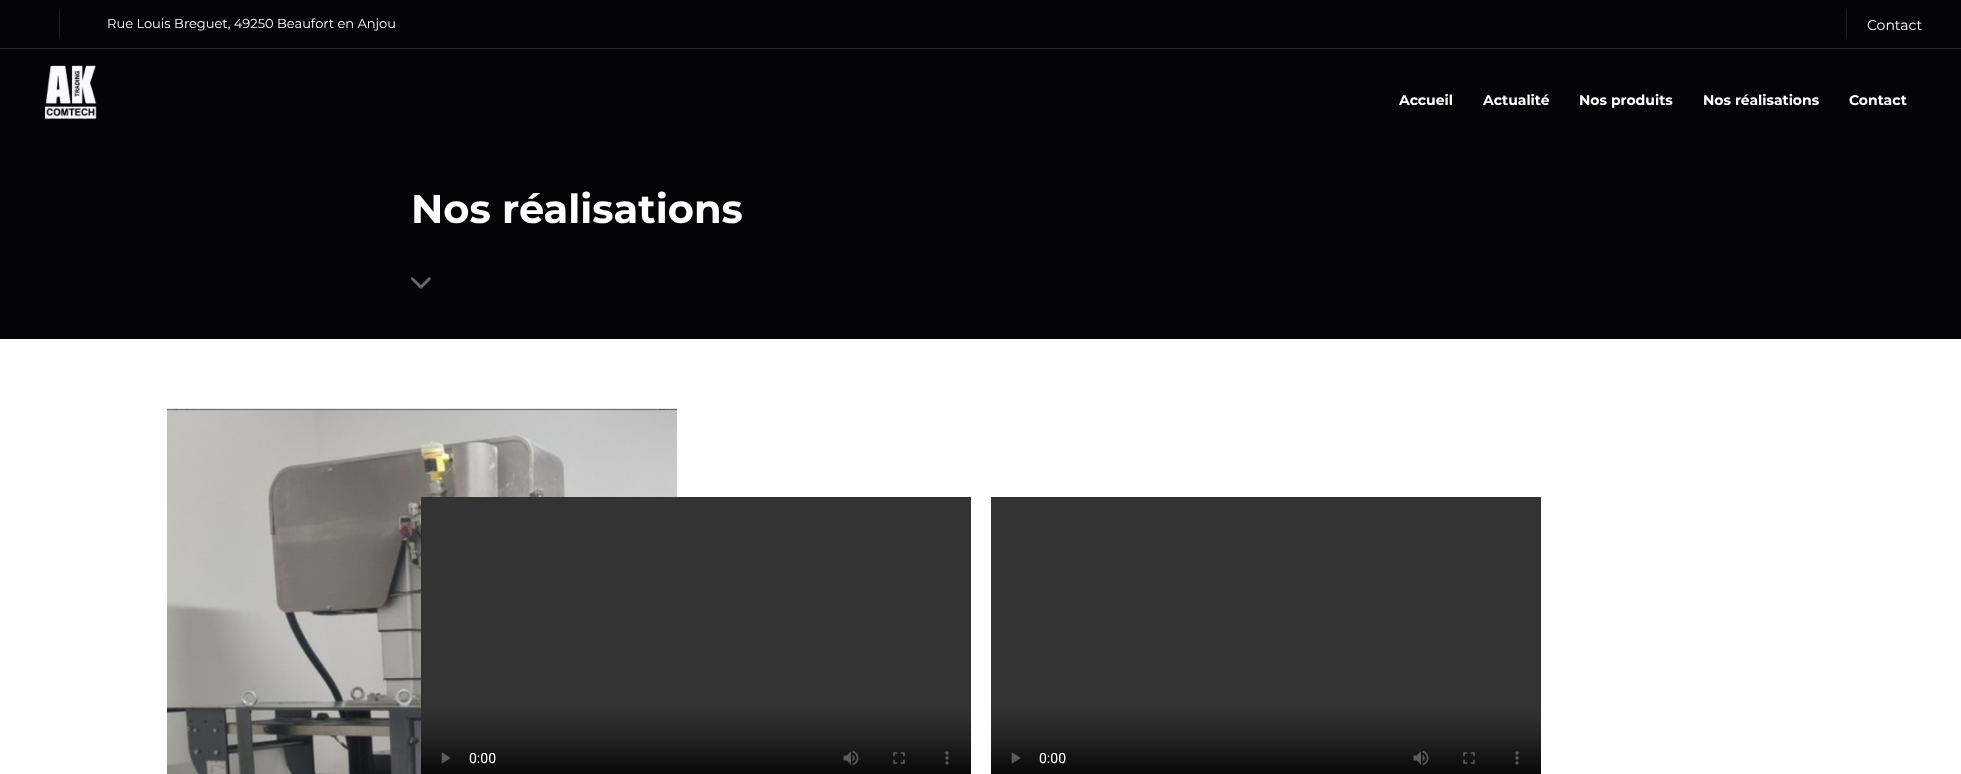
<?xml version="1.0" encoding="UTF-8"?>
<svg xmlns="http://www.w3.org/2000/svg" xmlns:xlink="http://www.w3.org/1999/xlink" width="1961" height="774">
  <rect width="100%" height="100%" fill="#ffffff" />
  <rect width="1961" height="339" fill="#040407" />
  <rect y="48" width="1961" height="1" fill="#27272a" />
  <rect x="59" y="10" width="1" height="28" fill="#1d1d20" />
  <rect x="1846" y="10" width="1" height="28" fill="#1d1d20" />
  <image x="44" y="65" width="53" height="54" xlink:href="image1.png" />
  <image x="411" y="277" width="20" height="12" xlink:href="image2.png" />
  <image x="167" y="408" width="510" height="366" xlink:href="image3.png" />
  <image x="421" y="497" width="550" height="277" xlink:href="image4.png" />
  <image x="991" y="497" width="550" height="277" xlink:href="image4.png" />
  <text x="107" y="28" style="font-family: Montserrat; font-size: 13px; fill: #ffffff">Rue Louis Breguet, 49250 Beaufort en Anjou</text>
  <text x="1867" y="30" style="font-family: Montserrat; font-size: 14px; fill: #ffffff">Contact</text>
  <text x="1399" y="105" style="font-family: Montserrat; font-size: 14px; font-weight: bold; fill: #ffffff">Accueil</text>
  <text x="1483" y="105" style="font-family: Montserrat; font-size: 14px; font-weight: bold; fill: #ffffff">Actualité</text>
  <text x="1579" y="105" style="font-family: Montserrat; font-size: 14px; font-weight: bold; fill: #ffffff">Nos produits</text>
  <text x="1703" y="105" style="font-family: Montserrat; font-size: 14px; font-weight: bold; fill: #ffffff">Nos réalisations</text>
  <text x="1849" y="105" style="font-family: Montserrat; font-size: 14px; font-weight: bold; fill: #ffffff">Contact</text>
  <text x="411" y="223" style="font-family: Montserrat; font-size: 40px; font-weight: bold; fill: #ffffff">Nos réalisations</text>
</svg>
